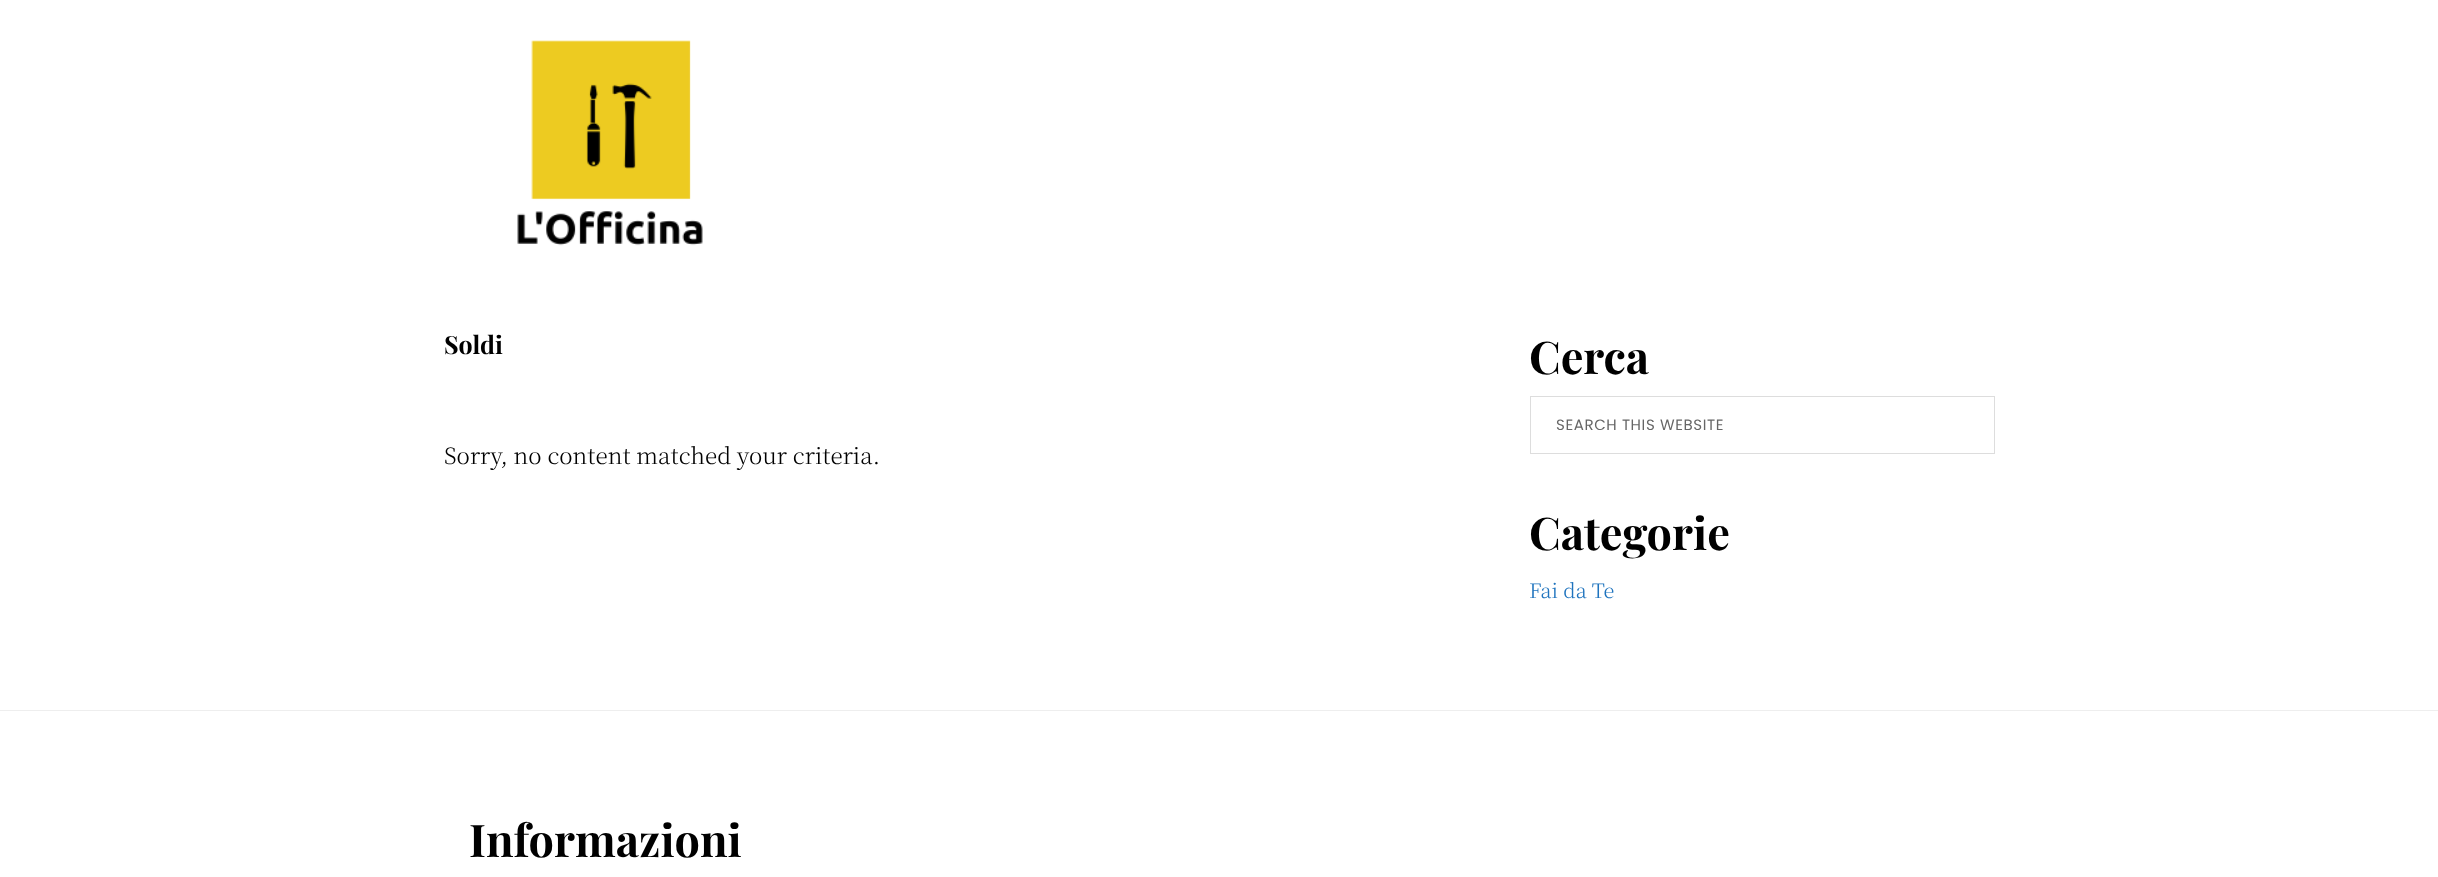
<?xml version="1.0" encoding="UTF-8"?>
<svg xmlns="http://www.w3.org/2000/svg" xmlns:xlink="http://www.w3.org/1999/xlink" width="2438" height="877">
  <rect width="100%" height="100%" fill="#ffffff" />
  <image x="517" y="40" width="186" height="206" xlink:href="image1.png" />
  <rect x="1530.5" y="396.5" width="464" height="57" fill="none" stroke="#dddddd" />
  <rect y="710" width="2438" height="1" fill="#eeeeee" />
  <text x="444" y="354" style="font-family: Playfair Display; font-size: 25px; font-weight: bold; fill: #000000">Soldi</text>
  <text x="444" y="464" style="font-family: Noto Serif SC; font-size: 22.5px; font-weight: 300; fill: #000000">Sorry, no content matched your criteria.</text>
  <text x="1529" y="374" style="font-family: Playfair Display; font-size: 45px; font-weight: bold; fill: #000000">Cerca</text>
  <text x="1556" y="430" style="font-family: Poppins; font-size: 15px; letter-spacing: 0.6px; fill: #666666">SEARCH THIS WEBSITE</text>
  <text x="1529" y="550" style="font-family: Playfair Display; font-size: 45px; font-weight: bold; fill: #000000">Categorie</text>
  <text x="1529" y="598" style="font-family: Noto Serif SC; font-size: 20px; font-weight: 300; fill: #1e73be">Fai da Te</text>
  <text x="469" y="857" style="font-family: Playfair Display; font-size: 45px; font-weight: bold; fill: #000000">Informazioni</text>
</svg>
